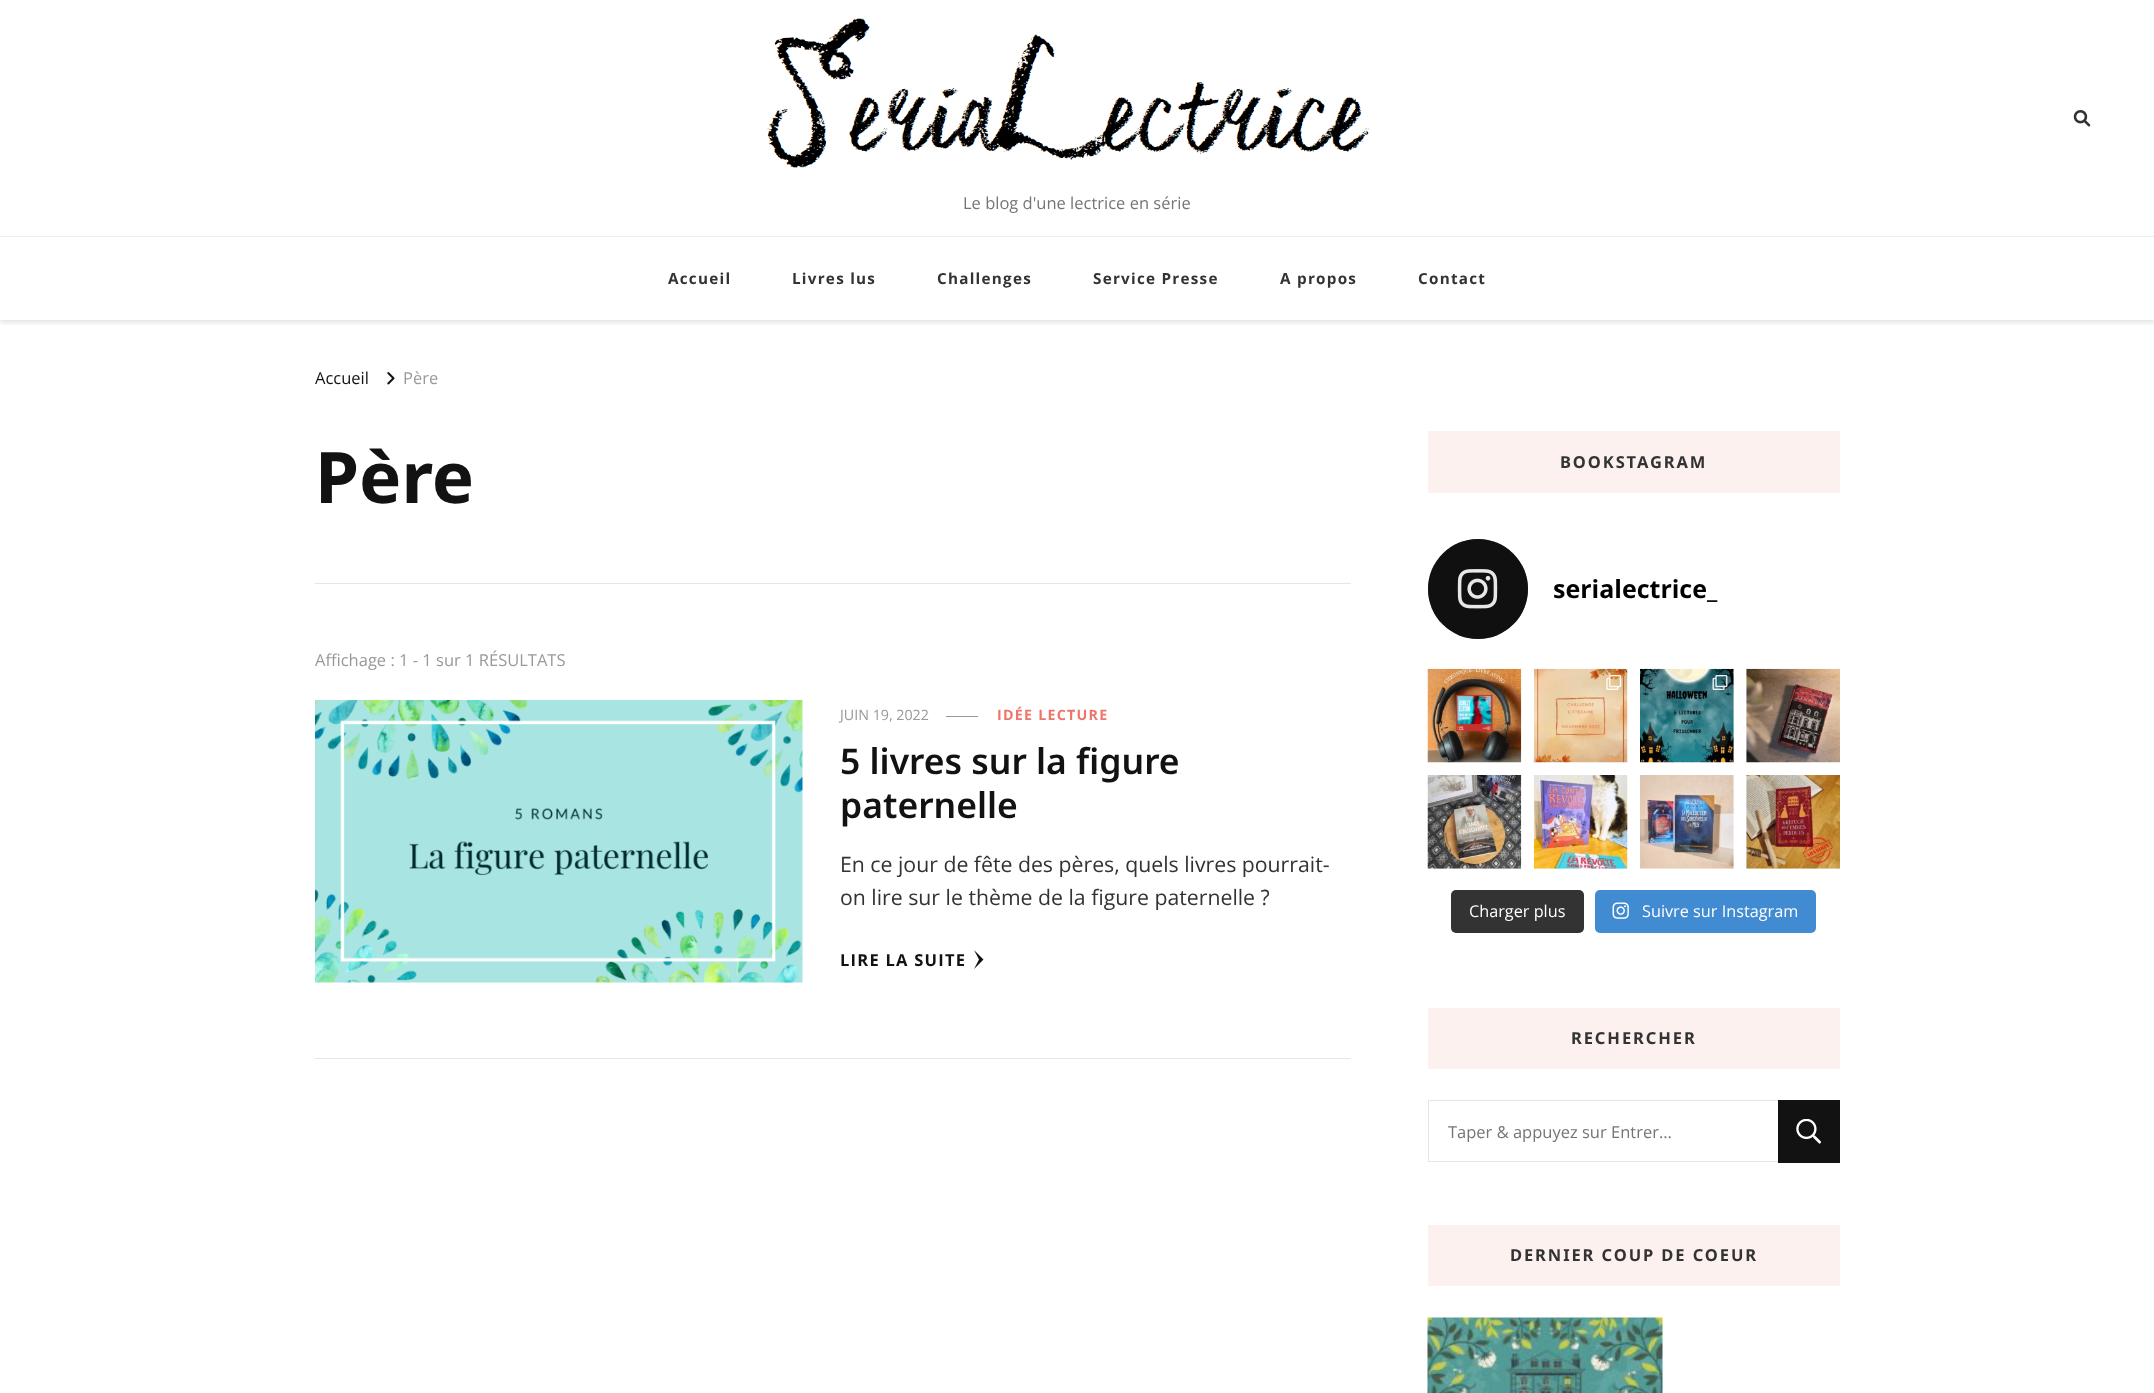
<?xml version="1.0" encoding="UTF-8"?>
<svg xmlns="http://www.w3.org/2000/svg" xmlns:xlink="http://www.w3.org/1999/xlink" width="2154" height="1393">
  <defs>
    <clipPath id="clip1"><rect x="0" y="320" width="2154" height="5" /></clipPath>
  </defs>
  <rect width="100%" height="100%" fill="#ffffff" />
  <g clip-path="url(#clip1)">
    <rect y="3" width="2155" height="320" fill="#000000" fill-opacity="0.1" filter="blur(2.5px)" />
  </g>
  <image x="2073" y="110" width="18" height="17" xlink:href="image1.png" />
  <image x="767" y="18" width="603" height="150" xlink:href="image2.png" />
  <rect y="236" width="2154" height="1" fill="#ededed" />
  <image x="387" y="372" width="8" height="13" xlink:href="image3.png" />
  <rect x="315" y="583" width="1036" height="1" fill="#e6e6e6" />
  <rect x="315" y="1058" width="1036" height="1" fill="#e6e6e6" />
  <image x="315" y="700" width="488" height="283" xlink:href="image4.png" />
  <rect x="946" y="716" width="32" height="1" fill="#999999" />
  <path d="M 983.5 959.5 l -9.5 9.5 l 5 -9.5 l -5 -9.5 z" fill="#121212" />
  <rect x="1428" y="431" width="412" height="62" fill="#fdf1f0" />
  <circle cx="1478" cy="589" r="50" fill="#333333" />
  <circle cx="1478" cy="589" r="50" fill="#000000" fill-opacity="0.68" />
  <image x="1457" y="569" width="41" height="40" xlink:href="image5.png" />
  <image x="1427" y="668" width="95" height="95" xlink:href="image6.png" />
  <image x="1533" y="668" width="95" height="95" xlink:href="image7.png" />
  <image x="1606" y="675" width="16" height="15" xlink:href="image8.png" />
  <image x="1640" y="668" width="94" height="95" xlink:href="image9.png" />
  <image x="1712" y="675" width="16" height="15" xlink:href="image10.png" />
  <image x="1746" y="668" width="94" height="95" xlink:href="image11.png" />
  <image x="1427" y="775" width="95" height="94" xlink:href="image12.png" />
  <image x="1533" y="775" width="95" height="94" xlink:href="image13.png" />
  <image x="1640" y="775" width="94" height="94" xlink:href="image14.png" />
  <image x="1746" y="775" width="94" height="94" xlink:href="image15.png" />
  <rect x="1451" y="890" width="133" height="43" rx="5" fill="#333333" />
  <rect x="1595" y="890" width="221" height="43" rx="5" fill="#408bd1" />
  <image x="1612" y="902" width="17" height="17" xlink:href="image16.png" />
  <rect x="1428" y="1008" width="412" height="61" fill="#fdf1f0" />
  <path d="M 1428 1100 h 350 v 1 h -349 z" fill="#e6e6e6" />
  <path d="M 1778 1162 h -350 l 1 -1 h 349 z" fill="#e6e6e6" />
  <path d="M 1428 1162 v -62 l 1 1 v 60 z" fill="#000000" fill-opacity="0.1" />
  <rect x="1778" y="1100" width="62" height="63" fill="#121212" />
  <image x="1796" y="1119" width="25" height="25" xlink:href="image17.png" />
  <rect x="1428" y="1225" width="412" height="61" fill="#fdf1f0" />
  <image x="1427" y="1317" width="236" height="76" xlink:href="image18.png" />
  <text x="963" y="209" style="font-family: Open Sans; font-size: 16.5px; fill: #757575">Le blog d'une lectrice en série</text>
  <text x="668" y="284" style="font-family: Open Sans; font-size: 15.25px; font-weight: bold; letter-spacing: 1.25px; fill: #333333">Accueil</text>
  <text x="792" y="284" style="font-family: Open Sans; font-size: 15.25px; font-weight: bold; letter-spacing: 1.25px; fill: #333333">Livres lus</text>
  <text x="937" y="284" style="font-family: Open Sans; font-size: 15.25px; font-weight: bold; letter-spacing: 1.25px; fill: #333333">Challenges</text>
  <text x="1093" y="284" style="font-family: Open Sans; font-size: 15.25px; font-weight: bold; letter-spacing: 1.25px; fill: #333333">Service Presse</text>
  <text x="1280" y="284" style="font-family: Open Sans; font-size: 15.25px; font-weight: bold; letter-spacing: 1.25px; fill: #333333">A propos</text>
  <text x="1418" y="284" style="font-family: Open Sans; font-size: 15.25px; font-weight: bold; letter-spacing: 1.25px; fill: #333333">Contact</text>
  <text x="315" y="384" style="font-family: Open Sans; font-size: 16.5px; fill: #121212">Accueil</text>
  <text x="403" y="384" style="font-family: Open Sans; font-size: 16.5px; fill: #999999">Père</text>
  <text x="315" y="503" style="font-family: Noto Sans; font-size: 71px; font-weight: bold; fill: #121212">Père</text>
  <text x="315" y="666" style="font-family: Open Sans; font-size: 16.5px; fill: #999999">Affichage : 1 - 1 sur 1 RÉSULTATS</text>
  <text x="840" y="720" style="font-family: Open Sans; font-size: 14.25px; fill: #999999">JUIN 19, 2022</text>
  <text x="997" y="720" style="font-family: Open Sans; font-size: 14.25px; font-weight: bold; letter-spacing: 1.25px; fill: #ef746a">IDÉE LECTURE</text>
  <text x="840" y="774" style="font-family: Noto Sans; font-size: 35.5px; font-weight: 600; fill: #121212">5 livres sur la figure</text>
  <text x="840" y="818" style="font-family: Noto Sans; font-size: 35.5px; font-weight: 600; fill: #121212">paternelle</text>
  <text x="840" y="872" style="font-family: Open Sans; font-size: 21.25px; fill: #333333">En ce jour de fête des pères, quels livres pourrait-</text>
  <text x="840" y="905" style="font-family: Open Sans; font-size: 21.25px; fill: #333333">on lire sur le thème de la figure paternelle ?</text>
  <text x="840" y="966" style="font-family: Open Sans; font-size: 16.5px; font-weight: bold; letter-spacing: 1.25px; fill: #121212">LIRE LA SUITE</text>
  <text x="1560" y="468" style="font-family: Noto Sans; font-size: 16.5px; font-weight: bold; letter-spacing: 1.9px; fill: #333333">BOOKSTAGRAM</text>
  <text x="1553" y="598" style="font-family: Open Sans; font-size: 25px; font-weight: bold; fill: #000000">serialectrice_</text>
  <text x="1469" y="917" style="font-family: Open Sans; font-size: 16.25px; fill: #ffffff">Charger plus</text>
  <text x="1642" y="917" style="font-family: Open Sans; font-size: 16.25px; fill: #ffffff">Suivre sur Instagram</text>
  <text x="1571" y="1044" style="font-family: Noto Sans; font-size: 16.5px; font-weight: bold; letter-spacing: 1.9px; fill: #333333">RECHERCHER</text>
  <text x="1448" y="1138" style="font-family: Open Sans; font-size: 16.5px; fill: #757575">Taper &amp; appuyez sur Entrer…</text>
  <text x="1510" y="1261" style="font-family: Noto Sans; font-size: 16.5px; font-weight: bold; letter-spacing: 1.9px; fill: #333333">DERNIER COUP DE COEUR</text>
</svg>
